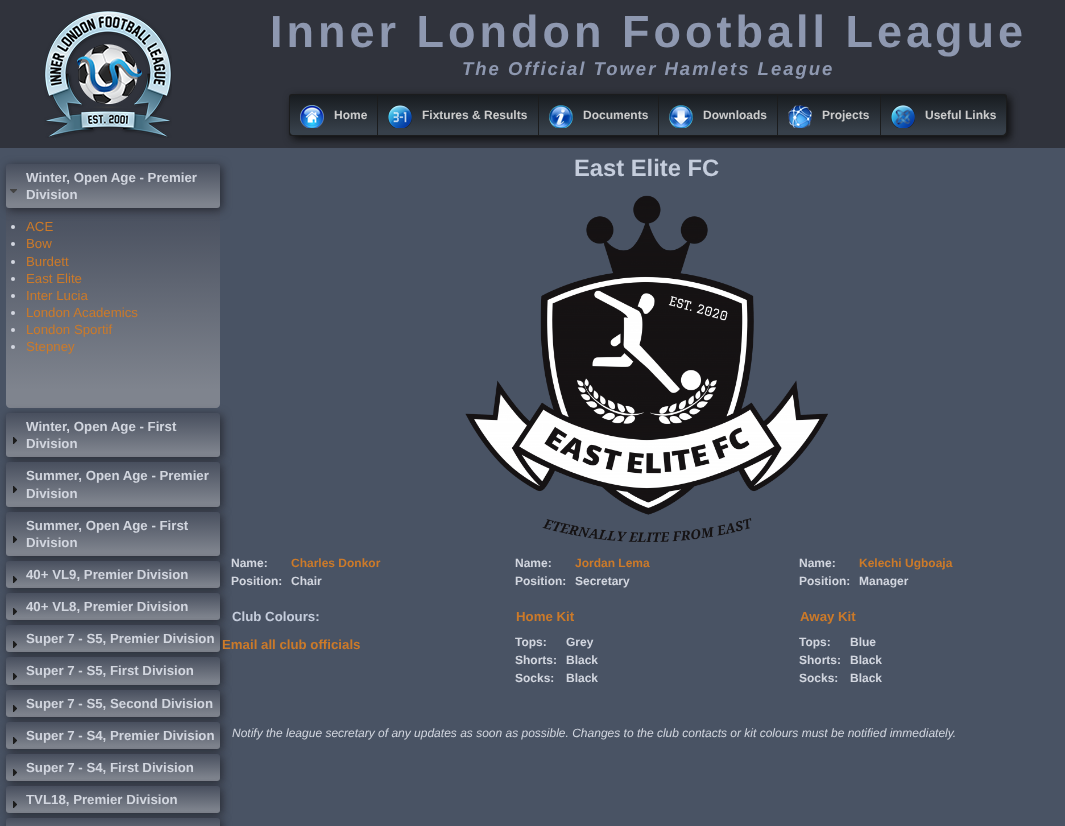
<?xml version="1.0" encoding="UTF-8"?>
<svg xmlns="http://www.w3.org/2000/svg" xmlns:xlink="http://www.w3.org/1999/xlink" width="1065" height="826">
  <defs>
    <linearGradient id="g1" gradientUnits="userSpaceOnUse" x1="334" y1="95" x2="334" y2="135"><stop offset="0" stop-color="#181c20" /><stop offset="0.91" stop-color="#37404a" /></linearGradient>
    <linearGradient id="g2" gradientUnits="userSpaceOnUse" x1="458" y1="95" x2="458" y2="135"><stop offset="0" stop-color="#181c20" /><stop offset="0.91" stop-color="#37404a" /></linearGradient>
    <linearGradient id="g3" gradientUnits="userSpaceOnUse" x1="599" y1="95" x2="599" y2="135"><stop offset="0" stop-color="#181c20" /><stop offset="0.91" stop-color="#37404a" /></linearGradient>
    <linearGradient id="g4" gradientUnits="userSpaceOnUse" x1="718" y1="95" x2="718" y2="135"><stop offset="0" stop-color="#181c20" /><stop offset="0.91" stop-color="#37404a" /></linearGradient>
    <linearGradient id="g5" gradientUnits="userSpaceOnUse" x1="829" y1="95" x2="829" y2="135"><stop offset="0" stop-color="#181c20" /><stop offset="0.91" stop-color="#37404a" /></linearGradient>
    <linearGradient id="g6" gradientUnits="userSpaceOnUse" x1="944" y1="95" x2="944" y2="135"><stop offset="0" stop-color="#181c20" /><stop offset="0.91" stop-color="#37404a" /></linearGradient>
    <linearGradient id="g7" gradientUnits="userSpaceOnUse" x1="113" y1="208" x2="113" y2="408"><stop offset="0" stop-color="#484f5e" /><stop offset="0.91" stop-color="#7f848e" /></linearGradient>
    <linearGradient id="g8" gradientUnits="userSpaceOnUse" x1="113" y1="164" x2="113" y2="208"><stop offset="0" stop-color="#484f5e" /><stop offset="0.91" stop-color="#7f848e" /></linearGradient>
    <linearGradient id="g9" gradientUnits="userSpaceOnUse" x1="113" y1="413" x2="113" y2="457"><stop offset="0" stop-color="#484f5e" /><stop offset="0.91" stop-color="#7f848e" /></linearGradient>
    <linearGradient id="g10" gradientUnits="userSpaceOnUse" x1="113" y1="462" x2="113" y2="507"><stop offset="0" stop-color="#484f5e" /><stop offset="0.91" stop-color="#7f848e" /></linearGradient>
    <linearGradient id="g11" gradientUnits="userSpaceOnUse" x1="113" y1="512" x2="113" y2="556"><stop offset="0" stop-color="#484f5e" /><stop offset="0.91" stop-color="#7f848e" /></linearGradient>
    <linearGradient id="g12" gradientUnits="userSpaceOnUse" x1="113" y1="561" x2="113" y2="588"><stop offset="0" stop-color="#484f5e" /><stop offset="0.91" stop-color="#7f848e" /></linearGradient>
    <linearGradient id="g13" gradientUnits="userSpaceOnUse" x1="113" y1="593" x2="113" y2="620"><stop offset="0" stop-color="#484f5e" /><stop offset="0.91" stop-color="#7f848e" /></linearGradient>
    <linearGradient id="g14" gradientUnits="userSpaceOnUse" x1="113" y1="625" x2="113" y2="652"><stop offset="0" stop-color="#484f5e" /><stop offset="0.91" stop-color="#7f848e" /></linearGradient>
    <linearGradient id="g15" gradientUnits="userSpaceOnUse" x1="113" y1="657" x2="113" y2="685"><stop offset="0" stop-color="#484f5e" /><stop offset="0.91" stop-color="#7f848e" /></linearGradient>
    <linearGradient id="g16" gradientUnits="userSpaceOnUse" x1="113" y1="690" x2="113" y2="717"><stop offset="0" stop-color="#484f5e" /><stop offset="0.91" stop-color="#7f848e" /></linearGradient>
    <linearGradient id="g17" gradientUnits="userSpaceOnUse" x1="113" y1="722" x2="113" y2="749"><stop offset="0" stop-color="#484f5e" /><stop offset="0.91" stop-color="#7f848e" /></linearGradient>
    <linearGradient id="g18" gradientUnits="userSpaceOnUse" x1="113" y1="754" x2="113" y2="781"><stop offset="0" stop-color="#484f5e" /><stop offset="0.91" stop-color="#7f848e" /></linearGradient>
    <linearGradient id="g19" gradientUnits="userSpaceOnUse" x1="113" y1="786" x2="113" y2="813"><stop offset="0" stop-color="#484f5e" /><stop offset="0.91" stop-color="#7f848e" /></linearGradient>
    <linearGradient id="g20" gradientUnits="userSpaceOnUse" x1="113" y1="818" x2="113" y2="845"><stop offset="0" stop-color="#484f5e" /><stop offset="0.91" stop-color="#7f848e" /></linearGradient>
  </defs>
  <rect width="100%" height="100%" fill="#30333c" />
  <image x="44" y="10" width="128" height="128" xlink:href="image1.png" />
  <rect y="148" width="1065" height="678" fill="#495364" />
  <rect x="292" y="97" width="718" height="42" rx="3" fill="#0c0c0c" filter="blur(4px)" />
  <rect x="289" y="94" width="718" height="42" rx="3" fill="#1b1c1d" />
  <path d="M 293 95 h 84 v 40 h -84 c -1.5 0 -3 -1.5 -3 -3 v -34 c 0 -1.5 1.5 -3 3 -3 z" fill="url(#g1)" />
  <image x="300" y="105" width="24" height="23" xlink:href="image2.png" />
  <rect x="378" y="95" width="160" height="40" fill="url(#g2)" />
  <image x="388" y="105" width="24" height="23" xlink:href="image3.png" />
  <rect x="539" y="95" width="119" height="40" fill="url(#g3)" />
  <image x="549" y="105" width="24" height="23" xlink:href="image4.png" />
  <rect x="659" y="95" width="118" height="40" fill="url(#g4)" />
  <image x="669" y="105" width="24" height="23" xlink:href="image5.png" />
  <rect x="778" y="95" width="102" height="40" fill="url(#g5)" />
  <image x="788" y="105" width="24" height="23" xlink:href="image6.png" />
  <path d="M 881 95 h 121 c 2 0 4 2 4 4 v 32 c 0 2 -2 4 -4 4 h -121 z" fill="url(#g6)" />
  <image x="891" y="105" width="24" height="23" xlink:href="image7.png" />
  <path d="M 6 208 h 214 v 196 c 0 2 -2 4 -4 4 h -206 c -2 0 -4 -2 -4 -4 z" fill="url(#g7)" />
  <circle cx="13" cy="227" r="2" fill="#d2d6df" />
  <rect x="8" y="166" width="214" height="44" rx="3" fill="#272931" filter="blur(5px)" />
  <rect x="6" y="164" width="214" height="44" rx="3" fill="url(#g8)" />
  <image x="10" y="189" width="7" height="4" xlink:href="image8.png" />
  <circle cx="13" cy="244" r="2" fill="#d2d6df" />
  <circle cx="13" cy="262" r="2" fill="#d2d6df" />
  <circle cx="13" cy="279" r="2" fill="#d2d6df" />
  <circle cx="13" cy="296" r="2" fill="#d2d6df" />
  <circle cx="13" cy="313" r="2" fill="#d2d6df" />
  <circle cx="13" cy="330" r="2" fill="#d2d6df" />
  <circle cx="13" cy="347" r="2" fill="#d2d6df" />
  <rect x="8" y="415" width="214" height="44" rx="3" fill="#272931" filter="blur(5px)" />
  <rect x="6" y="413" width="214" height="44" rx="3" fill="url(#g9)" />
  <image x="13" y="437" width="4" height="7" xlink:href="image9.png" />
  <rect x="8" y="464" width="214" height="45" rx="3" fill="#272931" filter="blur(5px)" />
  <rect x="6" y="462" width="214" height="45" rx="3" fill="url(#g10)" />
  <image x="13" y="486" width="4" height="7" xlink:href="image10.png" />
  <rect x="8" y="514" width="214" height="44" rx="3" fill="#272931" filter="blur(5px)" />
  <rect x="6" y="512" width="214" height="44" rx="3" fill="url(#g11)" />
  <image x="13" y="536" width="4" height="7" xlink:href="image9.png" />
  <rect x="8" y="563" width="214" height="27" rx="3" fill="#272931" filter="blur(5px)" />
  <rect x="6" y="561" width="214" height="27" rx="3" fill="url(#g12)" />
  <image x="13" y="576" width="4" height="7" xlink:href="image11.png" />
  <rect x="8" y="595" width="214" height="27" rx="3" fill="#272931" filter="blur(5px)" />
  <rect x="6" y="593" width="214" height="27" rx="3" fill="url(#g13)" />
  <image x="13" y="608" width="4" height="7" xlink:href="image11.png" />
  <rect x="8" y="627" width="214" height="27" rx="3" fill="#272931" filter="blur(5px)" />
  <rect x="6" y="625" width="214" height="27" rx="3" fill="url(#g14)" />
  <image x="13" y="641" width="4" height="7" xlink:href="image12.png" />
  <rect x="8" y="659" width="214" height="28" rx="3" fill="#272931" filter="blur(5px)" />
  <rect x="6" y="657" width="214" height="28" rx="3" fill="url(#g15)" />
  <image x="13" y="673" width="4" height="7" xlink:href="image13.png" />
  <rect x="8" y="692" width="214" height="27" rx="3" fill="#272931" filter="blur(5px)" />
  <rect x="6" y="690" width="214" height="27" rx="3" fill="url(#g16)" />
  <image x="13" y="705" width="4" height="7" xlink:href="image11.png" />
  <rect x="8" y="724" width="214" height="27" rx="3" fill="#272931" filter="blur(5px)" />
  <rect x="6" y="722" width="214" height="27" rx="3" fill="url(#g17)" />
  <image x="13" y="737" width="4" height="7" xlink:href="image11.png" />
  <rect x="8" y="756" width="214" height="27" rx="3" fill="#272931" filter="blur(5px)" />
  <rect x="6" y="754" width="214" height="27" rx="3" fill="url(#g18)" />
  <image x="13" y="769" width="4" height="7" xlink:href="image11.png" />
  <rect x="8" y="788" width="214" height="27" rx="3" fill="#272931" filter="blur(5px)" />
  <rect x="6" y="786" width="214" height="27" rx="3" fill="url(#g19)" />
  <image x="13" y="801" width="4" height="7" xlink:href="image11.png" />
  <rect x="8" y="820" width="214" height="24" rx="3" fill="#272931" filter="blur(5px)" />
  <rect x="6" y="818" width="214" height="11" rx="3" fill="url(#g20)" />
  <image x="465" y="195" width="363" height="347" xlink:href="image14.png" />
  <text x="270" y="47" style="font-family: Liberation Sans; font-size: 45px; font-weight: bold; letter-spacing: 4px; fill: #8e98b0">Inner London Football League</text>
  <text x="462" y="75" style="font-family: Liberation Sans; font-size: 18.5px; font-weight: bold; font-style: italic; letter-spacing: 2px; fill: #8e98b0">The Official Tower Hamlets League</text>
  <text x="334" y="119" style="font-family: Liberation Sans; font-size: 12px; font-weight: bold; fill: #cccccc">Home</text>
  <text x="422" y="119" style="font-family: Liberation Sans; font-size: 12px; font-weight: bold; fill: #cccccc">Fixtures &amp; Results</text>
  <text x="583" y="119" style="font-family: Liberation Sans; font-size: 12px; font-weight: bold; fill: #cccccc">Documents</text>
  <text x="703" y="119" style="font-family: Liberation Sans; font-size: 12px; font-weight: bold; fill: #cccccc">Downloads</text>
  <text x="822" y="119" style="font-family: Liberation Sans; font-size: 12px; font-weight: bold; fill: #cccccc">Projects</text>
  <text x="925" y="119" style="font-family: Liberation Sans; font-size: 12px; font-weight: bold; fill: #cccccc">Useful Links</text>
  <text x="26" y="182" style="font-family: Liberation Sans; font-size: 13.25px; font-weight: bold; fill: #d2d6df">Winter, Open Age - Premier</text>
  <text x="26" y="199" style="font-family: Liberation Sans; font-size: 13.25px; font-weight: bold; fill: #d2d6df">Division</text>
  <text x="26" y="231" style="font-family: Liberation Sans; font-size: 13.25px; fill: #cc7a29">ACE</text>
  <text x="26" y="248" style="font-family: Liberation Sans; font-size: 13.25px; fill: #cc7a29">Bow</text>
  <text x="26" y="266" style="font-family: Liberation Sans; font-size: 13.25px; fill: #cc7a29">Burdett</text>
  <text x="26" y="283" style="font-family: Liberation Sans; font-size: 13.25px; fill: #cc7a29">East Elite</text>
  <text x="26" y="300" style="font-family: Liberation Sans; font-size: 13.25px; fill: #cc7a29">Inter Lucia</text>
  <text x="26" y="317" style="font-family: Liberation Sans; font-size: 13.25px; fill: #cc7a29">London Academics</text>
  <text x="26" y="334" style="font-family: Liberation Sans; font-size: 13.25px; fill: #cc7a29">London Sportif</text>
  <text x="26" y="351" style="font-family: Liberation Sans; font-size: 13.25px; fill: #cc7a29">Stepney</text>
  <text x="26" y="431" style="font-family: Liberation Sans; font-size: 13.25px; font-weight: bold; fill: #d2d6df">Winter, Open Age - First</text>
  <text x="26" y="448" style="font-family: Liberation Sans; font-size: 13.25px; font-weight: bold; fill: #d2d6df">Division</text>
  <text x="26" y="480" style="font-family: Liberation Sans; font-size: 13.25px; font-weight: bold; fill: #d2d6df">Summer, Open Age - Premier</text>
  <text x="26" y="498" style="font-family: Liberation Sans; font-size: 13.25px; font-weight: bold; fill: #d2d6df">Division</text>
  <text x="26" y="530" style="font-family: Liberation Sans; font-size: 13.25px; font-weight: bold; fill: #d2d6df">Summer, Open Age - First</text>
  <text x="26" y="547" style="font-family: Liberation Sans; font-size: 13.25px; font-weight: bold; fill: #d2d6df">Division</text>
  <text x="26" y="579" style="font-family: Liberation Sans; font-size: 13.25px; font-weight: bold; fill: #d2d6df">40+ VL9, Premier Division</text>
  <text x="26" y="611" style="font-family: Liberation Sans; font-size: 13.25px; font-weight: bold; fill: #d2d6df">40+ VL8, Premier Division</text>
  <text x="26" y="643" style="font-family: Liberation Sans; font-size: 13.25px; font-weight: bold; fill: #d2d6df">Super 7 - S5, Premier Division</text>
  <text x="26" y="675" style="font-family: Liberation Sans; font-size: 13.25px; font-weight: bold; fill: #d2d6df">Super 7 - S5, First Division</text>
  <text x="26" y="708" style="font-family: Liberation Sans; font-size: 13.25px; font-weight: bold; fill: #d2d6df">Super 7 - S5, Second Division</text>
  <text x="26" y="740" style="font-family: Liberation Sans; font-size: 13.25px; font-weight: bold; fill: #d2d6df">Super 7 - S4, Premier Division</text>
  <text x="26" y="772" style="font-family: Liberation Sans; font-size: 13.25px; font-weight: bold; fill: #d2d6df">Super 7 - S4, First Division</text>
  <text x="26" y="804" style="font-family: Liberation Sans; font-size: 13.25px; font-weight: bold; fill: #d2d6df">TVL18, Premier Division</text>
  <text x="574" y="176" style="font-family: Liberation Sans; font-size: 23.75px; font-weight: bold; fill: #c5cddc">East Elite FC</text>
  <text x="231" y="567" style="font-family: Liberation Sans; font-size: 12px; font-weight: bold; fill: #d2d6df">Name:</text>
  <text x="291" y="567" style="font-family: Liberation Sans; font-size: 12px; font-weight: bold; fill: #cc7a29">Charles Donkor</text>
  <text x="231" y="585" style="font-family: Liberation Sans; font-size: 12px; font-weight: bold; fill: #d2d6df">Position:</text>
  <text x="291" y="585" style="font-family: Liberation Sans; font-size: 12px; font-weight: bold; fill: #d2d6df">Chair</text>
  <text x="515" y="567" style="font-family: Liberation Sans; font-size: 12px; font-weight: bold; fill: #d2d6df">Name:</text>
  <text x="575" y="567" style="font-family: Liberation Sans; font-size: 12px; font-weight: bold; fill: #cc7a29">Jordan Lema</text>
  <text x="515" y="585" style="font-family: Liberation Sans; font-size: 12px; font-weight: bold; fill: #d2d6df">Position:</text>
  <text x="575" y="585" style="font-family: Liberation Sans; font-size: 12px; font-weight: bold; fill: #d2d6df">Secretary</text>
  <text x="799" y="567" style="font-family: Liberation Sans; font-size: 12px; font-weight: bold; fill: #d2d6df">Name:</text>
  <text x="859" y="567" style="font-family: Liberation Sans; font-size: 12px; font-weight: bold; fill: #cc7a29">Kelechi Ugboaja</text>
  <text x="799" y="585" style="font-family: Liberation Sans; font-size: 12px; font-weight: bold; fill: #d2d6df">Position:</text>
  <text x="859" y="585" style="font-family: Liberation Sans; font-size: 12px; font-weight: bold; fill: #d2d6df">Manager</text>
  <text x="232" y="621" style="font-family: Liberation Sans; font-size: 13.25px; font-weight: bold; fill: #c5cddc">Club Colours:</text>
  <text x="516" y="621" style="font-family: Liberation Sans; font-size: 13.25px; font-weight: bold; fill: #cc7a29">Home Kit</text>
  <text x="800" y="621" style="font-family: Liberation Sans; font-size: 13.25px; font-weight: bold; fill: #cc7a29">Away Kit</text>
  <text x="222" y="649" style="font-family: Liberation Sans; font-size: 13.25px; font-weight: bold; fill: #cc7a29">Email all club officials</text>
  <text x="515" y="646" style="font-family: Liberation Sans; font-size: 12px; font-weight: bold; fill: #d2d6df">Tops:</text>
  <text x="566" y="646" style="font-family: Liberation Sans; font-size: 12px; font-weight: bold; fill: #d2d6df">Grey</text>
  <text x="515" y="664" style="font-family: Liberation Sans; font-size: 12px; font-weight: bold; fill: #d2d6df">Shorts:</text>
  <text x="566" y="664" style="font-family: Liberation Sans; font-size: 12px; font-weight: bold; fill: #d2d6df">Black</text>
  <text x="515" y="682" style="font-family: Liberation Sans; font-size: 12px; font-weight: bold; fill: #d2d6df">Socks:</text>
  <text x="566" y="682" style="font-family: Liberation Sans; font-size: 12px; font-weight: bold; fill: #d2d6df">Black</text>
  <text x="799" y="646" style="font-family: Liberation Sans; font-size: 12px; font-weight: bold; fill: #d2d6df">Tops:</text>
  <text x="850" y="646" style="font-family: Liberation Sans; font-size: 12px; font-weight: bold; fill: #d2d6df">Blue</text>
  <text x="799" y="664" style="font-family: Liberation Sans; font-size: 12px; font-weight: bold; fill: #d2d6df">Shorts:</text>
  <text x="850" y="664" style="font-family: Liberation Sans; font-size: 12px; font-weight: bold; fill: #d2d6df">Black</text>
  <text x="799" y="682" style="font-family: Liberation Sans; font-size: 12px; font-weight: bold; fill: #d2d6df">Socks:</text>
  <text x="850" y="682" style="font-family: Liberation Sans; font-size: 12px; font-weight: bold; fill: #d2d6df">Black</text>
  <text x="232" y="737" style="font-family: Liberation Sans; font-size: 12px; font-style: italic; fill: #d2d6df">Notify the league secretary of any updates as soon as possible. Changes to the club contacts or kit colours must be notified immediately.</text>
</svg>
